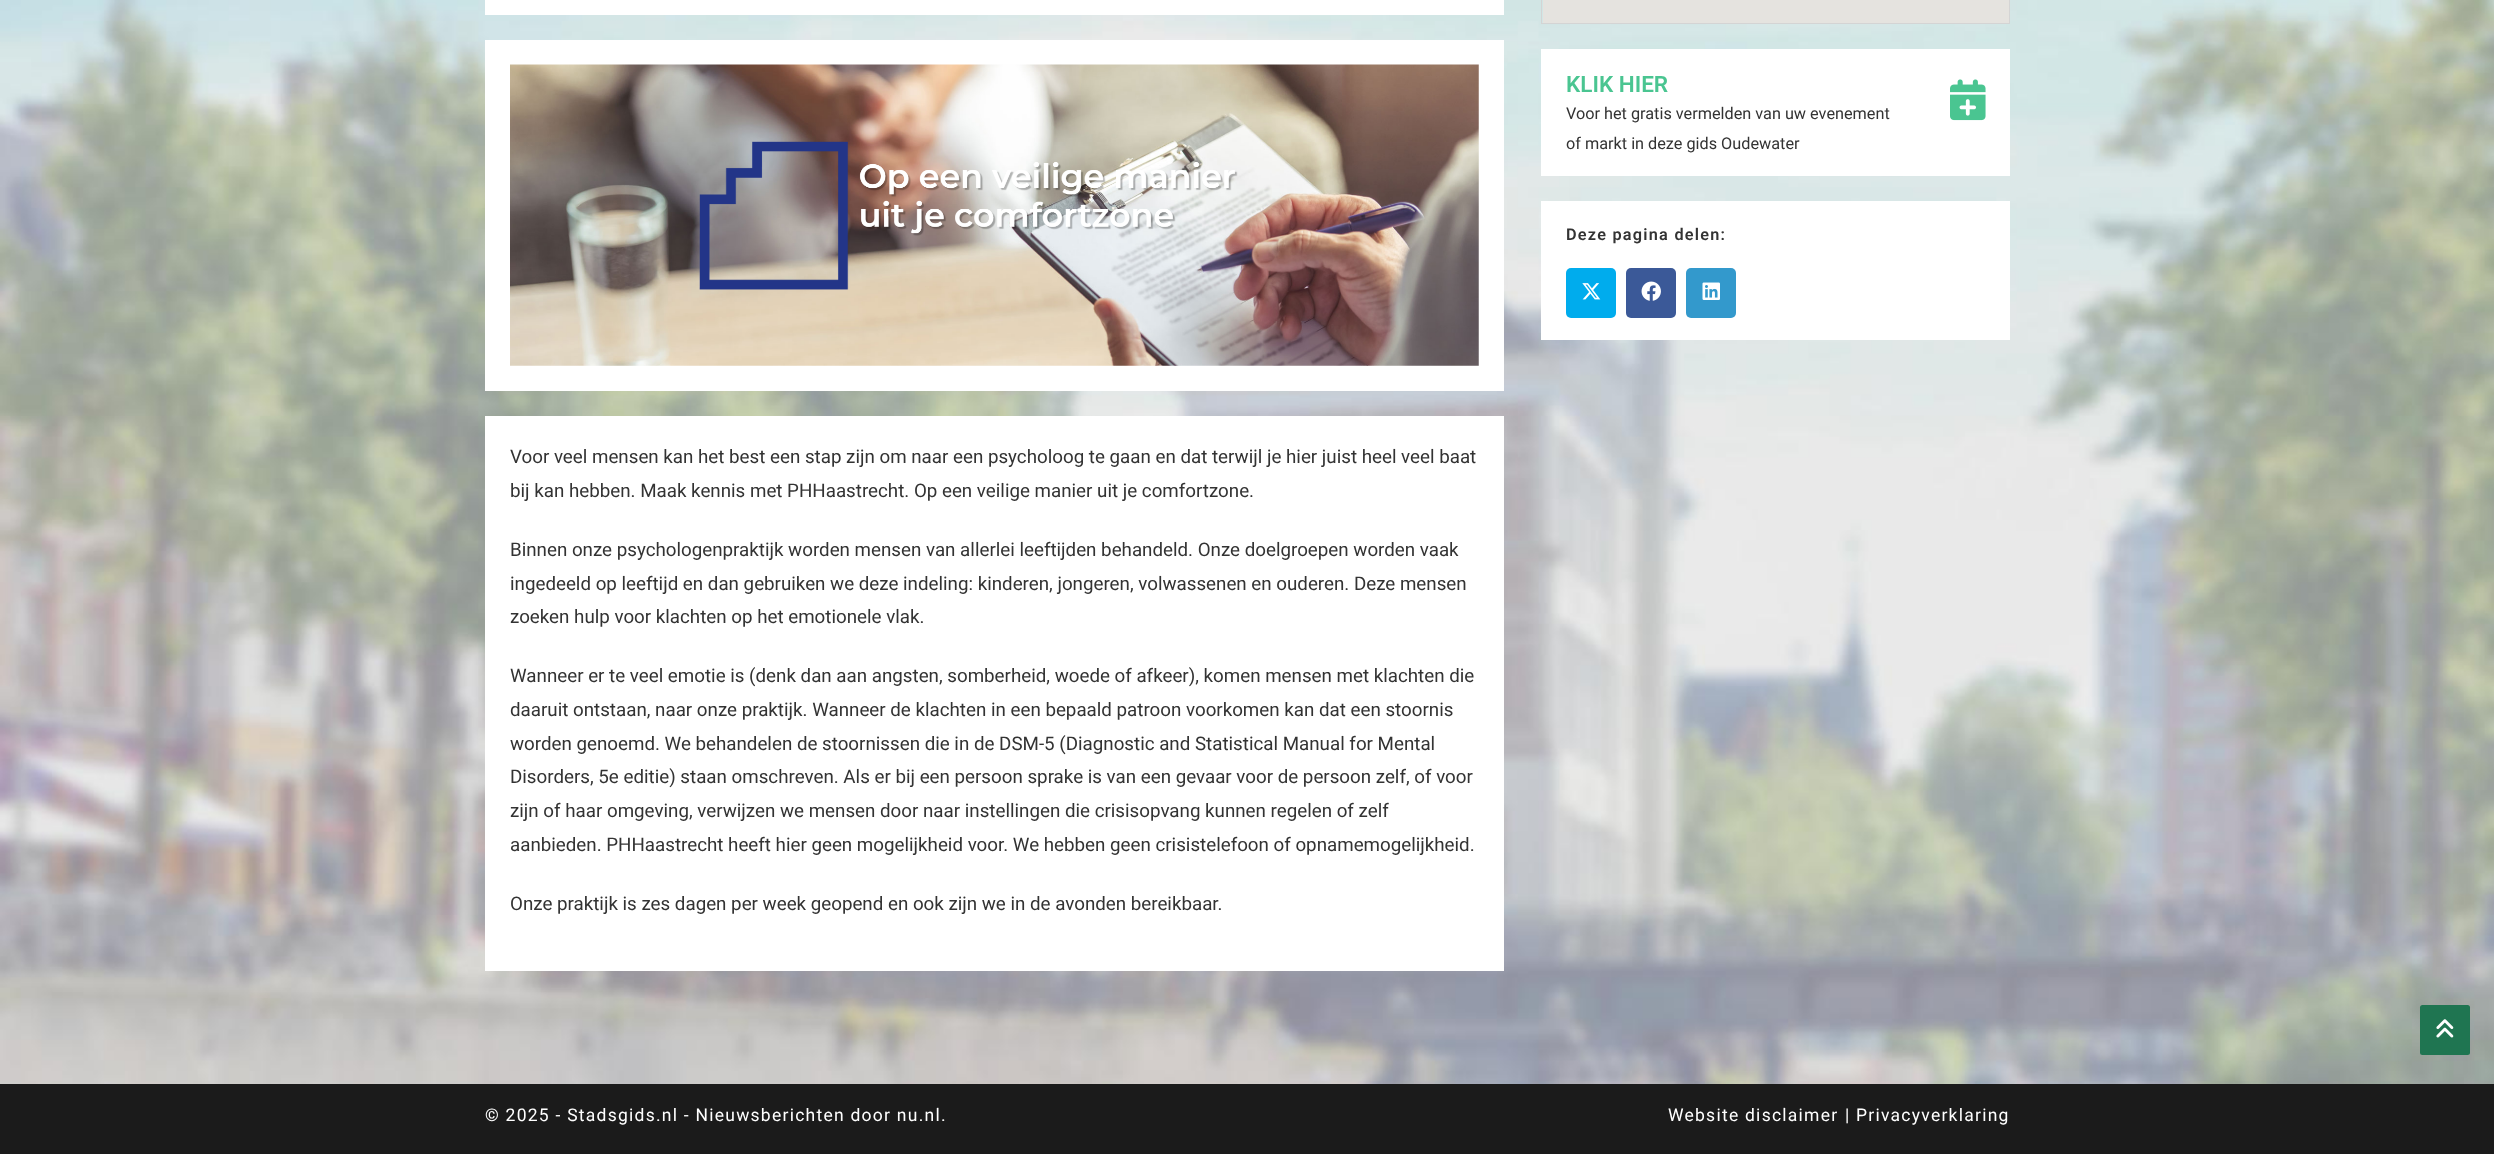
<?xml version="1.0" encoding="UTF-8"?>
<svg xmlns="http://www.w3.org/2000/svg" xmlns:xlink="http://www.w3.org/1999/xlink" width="2494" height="1154">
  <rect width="100%" height="100%" fill="#ffffff" />
  <image x="0" y="0" width="2494" height="1084" xlink:href="image1.png" />
  <rect x="1541.5" y="-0.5" width="468" height="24" fill="none" stroke="#d4d4d4" />
  <rect x="1543" width="466" height="23" fill="#e5e3df" />
  <rect x="1541" y="49" width="469" height="127" fill="#ffffff" />
  <image x="1950" y="79" width="36" height="42" xlink:href="image2.png" />
  <rect x="1541" y="201" width="469" height="139" fill="#ffffff" />
  <rect x="1566" y="268" width="50" height="50" rx="5" fill="#00aced" />
  <image x="1582" y="283" width="19" height="17" xlink:href="image3.png" />
  <rect x="1626" y="268" width="50" height="50" rx="5" fill="#3b5998" />
  <image x="1641" y="281" width="20" height="20" xlink:href="image4.png" />
  <rect x="1686" y="268" width="50" height="50" rx="5" fill="#3399cc" />
  <image x="1702" y="282" width="18" height="18" xlink:href="image5.png" />
  <rect x="485" width="1019" height="15" fill="#ffffff" />
  <rect x="485" y="40" width="1019" height="351" fill="#ffffff" />
  <image x="510" y="64" width="969" height="302" xlink:href="image6.png" />
  <rect x="485" y="416" width="1019" height="555" fill="#ffffff" />
  <rect y="1084" width="2494" height="70" fill="#1b1b1b" />
  <rect x="2420" y="1005" width="50" height="50" rx="2.5" fill="#1f7551" />
  <image x="2436" y="1019" width="18" height="19" xlink:href="image7.png" />
  <text x="1566" y="92" style="font-family: Roboto; font-size: 22.5px; font-weight: 600; fill: #4ac591">KLIK HIER</text>
  <text x="1566" y="119" style="font-family: Roboto; font-size: 16.25px; fill: #333333">Voor het gratis vermelden van uw evenement</text>
  <text x="1566" y="149" style="font-family: Roboto; font-size: 16.25px; fill: #333333">of markt in deze gids Oudewater</text>
  <text x="1566" y="240" style="font-family: Roboto; font-size: 16.25px; font-weight: 600; letter-spacing: 1.25px; fill: #333333">Deze pagina delen:</text>
  <text x="510" y="463" style="font-family: Roboto; font-size: 18.75px; fill: #333333">Voor veel mensen kan het best een stap zijn om naar een psycholoog te gaan en dat terwijl je hier juist heel veel baat</text>
  <text x="510" y="497" style="font-family: Roboto; font-size: 18.75px; fill: #333333">bij kan hebben. Maak kennis met PHHaastrecht. Op een veilige manier uit je comfortzone.</text>
  <text x="510" y="556" style="font-family: Roboto; font-size: 18.75px; fill: #333333">Binnen onze psychologenpraktijk worden mensen van allerlei leeftijden behandeld. Onze doelgroepen worden vaak</text>
  <text x="510" y="590" style="font-family: Roboto; font-size: 18.75px; fill: #333333">ingedeeld op leeftijd en dan gebruiken we deze indeling: kinderen, jongeren, volwassenen en ouderen. Deze mensen</text>
  <text x="510" y="623" style="font-family: Roboto; font-size: 18.75px; fill: #333333">zoeken hulp voor klachten op het emotionele vlak.</text>
  <text x="510" y="682" style="font-family: Roboto; font-size: 18.75px; fill: #333333">Wanneer er te veel emotie is (denk dan aan angsten, somberheid, woede of afkeer), komen mensen met klachten die</text>
  <text x="510" y="716" style="font-family: Roboto; font-size: 18.75px; fill: #333333">daaruit ontstaan, naar onze praktijk. Wanneer de klachten in een bepaald patroon voorkomen kan dat een stoornis</text>
  <text x="510" y="750" style="font-family: Roboto; font-size: 18.75px; fill: #333333">worden genoemd. We behandelen de stoornissen die in de DSM-5 (Diagnostic and Statistical Manual for Mental</text>
  <text x="510" y="783" style="font-family: Roboto; font-size: 18.75px; fill: #333333">Disorders, 5e editie) staan omschreven. Als er bij een persoon sprake is van een gevaar voor de persoon zelf, of voor</text>
  <text x="510" y="817" style="font-family: Roboto; font-size: 18.75px; fill: #333333">zijn of haar omgeving, verwijzen we mensen door naar instellingen die crisisopvang kunnen regelen of zelf</text>
  <text x="510" y="851" style="font-family: Roboto; font-size: 18.75px; fill: #333333">aanbieden. PHHaastrecht heeft hier geen mogelijkheid voor. We hebben geen crisistelefoon of opnamemogelijkheid.</text>
  <text x="510" y="910" style="font-family: Roboto; font-size: 18.75px; fill: #333333">Onze praktijk is zes dagen per week geopend en ook zijn we in de avonden bereikbaar.</text>
  <text x="485" y="1121" style="font-family: Roboto; font-size: 17.5px; letter-spacing: 1.25px; fill: #ffffff">© 2025 - Stadsgids.nl - Nieuwsberichten door nu.nl.</text>
  <text x="1668" y="1121" style="font-family: Roboto; font-size: 17.5px; letter-spacing: 1.25px; fill: #ffffff">Website disclaimer</text>
  <text x="1845" y="1121" style="font-family: Roboto; font-size: 17.5px; letter-spacing: 1.25px; fill: #ffffff">|</text>
  <text x="1856" y="1121" style="font-family: Roboto; font-size: 17.5px; letter-spacing: 1.25px; fill: #ffffff">Privacyverklaring</text>
</svg>
